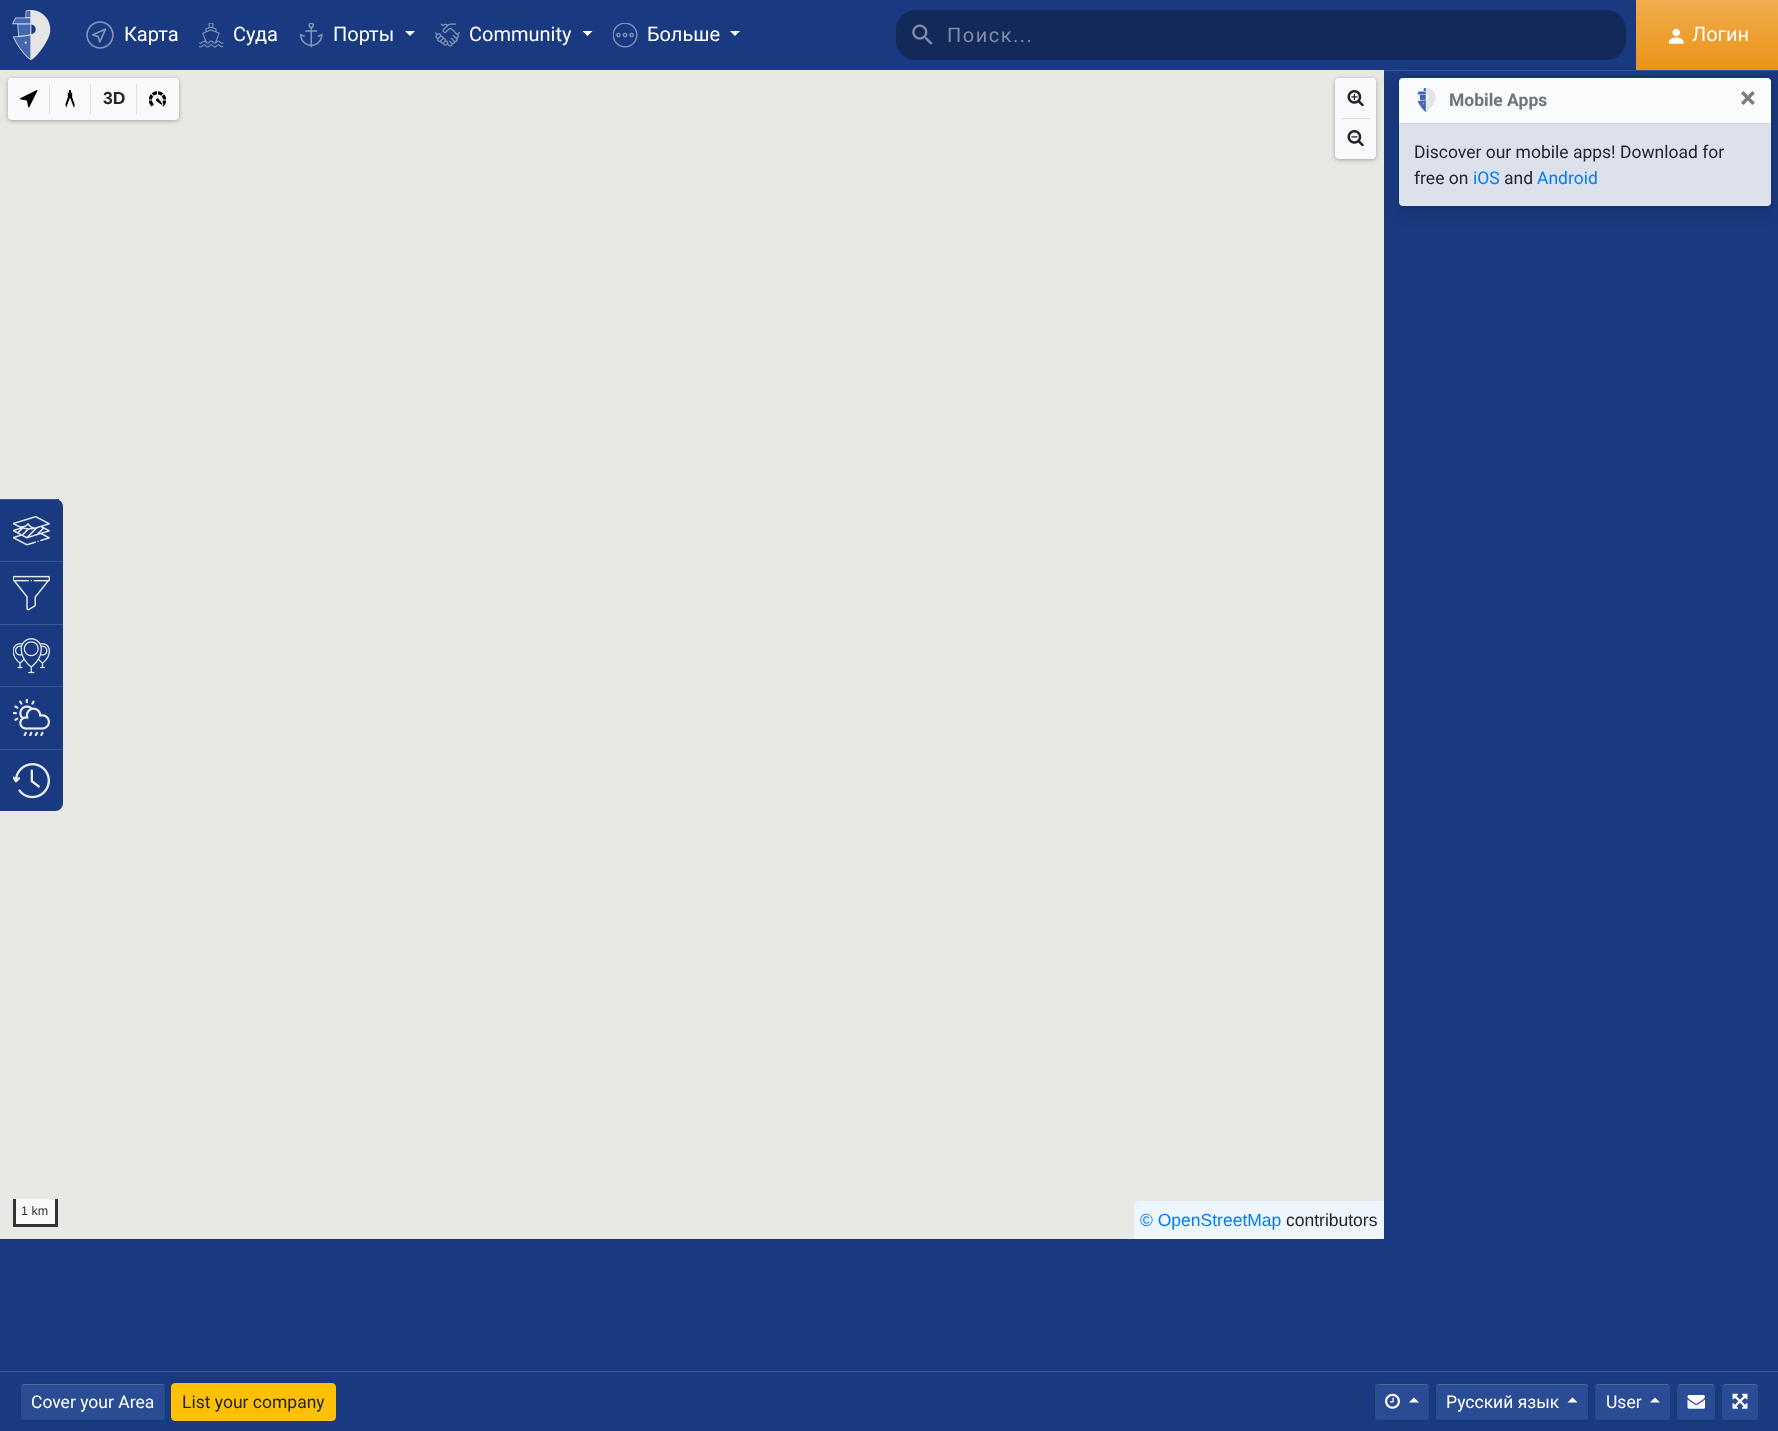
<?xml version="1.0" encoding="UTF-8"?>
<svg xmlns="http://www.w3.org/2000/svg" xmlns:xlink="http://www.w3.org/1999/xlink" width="1778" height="1431">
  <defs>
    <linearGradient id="g1" gradientUnits="userSpaceOnUse" x1="1708" y1="0" x2="1708" y2="70"><stop offset="0" stop-color="#f0ad4e" /><stop offset="1" stop-color="#eb9316" /></linearGradient>
  </defs>
  <rect width="100%" height="100%" fill="#193a80" />
  <image x="12" y="10" width="39" height="50" xlink:href="image1.png" />
  <image x="86" y="21" width="28" height="28" xlink:href="image2.png" />
  <image x="199" y="23" width="25" height="25" xlink:href="image3.png" />
  <image x="299" y="23" width="24" height="25" xlink:href="image4.png" />
  <path d="M 405 31 h 10 l -5 5 z" fill="#ffffff" />
  <image x="435" y="23" width="25" height="24" xlink:href="image5.png" />
  <path d="M 582.5 31 h 10 l -5 5 z" fill="#ffffff" />
  <image x="613" y="23" width="25" height="25" xlink:href="image6.png" />
  <path d="M 730 31 h 10 l -5 5 z" fill="#ffffff" />
  <rect x="896" y="10" width="730" height="50" rx="20" fill="#12295a" />
  <image x="912" y="24" width="21" height="21" xlink:href="image7.png" />
  <rect x="1636" width="142" height="70" fill="url(#g1)" />
  <image x="1668" y="28" width="16" height="16" xlink:href="image8.png" />
  <rect x="1384" y="70" width="394" height="1" fill="#3d5890" />
  <rect y="70" width="1384" height="1169" fill="#e8e8e4" />
  <rect x="8" y="79" width="171" height="42" rx="4" fill="#000000" fill-opacity="0.3" filter="blur(2px)" />
  <rect x="8" y="78" width="171" height="42" rx="4" fill="#f8f9fa" />
  <image x="20" y="90" width="18" height="18" xlink:href="image9.png" />
  <rect x="49" y="84" width="1" height="30" fill="#dee2e6" />
  <image x="65" y="90" width="10" height="18" xlink:href="image10.png" />
  <rect x="90" y="84" width="1" height="30" fill="#dee2e6" />
  <rect x="136" y="84" width="1" height="30" fill="#dee2e6" />
  <image x="149" y="91" width="17" height="16" xlink:href="image11.png" />
  <rect x="1335" y="79" width="41" height="81" rx="4" fill="#000000" fill-opacity="0.3" filter="blur(2px)" />
  <rect x="1335" y="78" width="41" height="81" rx="4" fill="#f8f9fa" />
  <image x="1347" y="90" width="17" height="17" xlink:href="image12.png" />
  <rect x="1341" y="118" width="29" height="1" fill="#dee2e6" />
  <image x="1347" y="130" width="17" height="17" xlink:href="image13.png" />
  <rect x="16" y="1199" width="39" height="25" fill="#f9f9f8" />
  <rect x="55" y="1199" width="3" height="27" fill="#333333" />
  <rect x="13" y="1224" width="45" height="3" fill="#333333" />
  <rect x="13" y="1199" width="3" height="27" fill="#333333" />
  <path d="M 1140 1201 h 244 v 38 h -250 v -32 c 0 -3.5 2.5 -6 6 -6 z" fill="#edf6fd" />
  <path d="M 0 499 h 55 c 4.5 0 8 3.5 8 8 v 54 h -63 z" fill="#193a80" />
  <rect y="499" width="59" height="1" fill="#3d5890" />
  <image x="13" y="515" width="37" height="31" xlink:href="image14.png" />
  <rect y="562" width="63" height="62" fill="#193a80" />
  <rect y="561" width="63" height="1" fill="#3d5890" />
  <image x="13" y="575" width="37" height="36" xlink:href="image15.png" />
  <rect y="625" width="63" height="61" fill="#193a80" />
  <rect y="624" width="63" height="1" fill="#3d5890" />
  <image x="13" y="638" width="37" height="36" xlink:href="image16.png" />
  <rect y="687" width="63" height="62" fill="#193a80" />
  <rect y="686" width="63" height="1" fill="#3d5890" />
  <image x="13" y="699" width="37" height="37" xlink:href="image17.png" />
  <path d="M 0 749 h 63 v 54 c 0 4.5 -3.5 8 -8 8 h -55 z" fill="#193a80" />
  <rect y="749" width="63" height="1" fill="#3d5890" />
  <image x="13" y="763" width="37" height="36" xlink:href="image18.png" />
  <rect x="1398" y="81" width="375" height="132" rx="5" fill="#000000" fill-opacity="0.1" filter="blur(7.5px)" />
  <rect x="1399" y="78" width="372" height="128" rx="4" fill="#dde1ec" />
  <rect x="1398.5" y="76.5" width="374" height="131" rx="4.5" fill="none" stroke="#000000" stroke-opacity="0.1" />
  <path d="M 1403 78 h 364 c 2 0 4 2 4 4 v 41 h -372 v -41 c 0 -2 2 -4 4 -4 z" fill="#ffffff" fill-opacity="0.85" />
  <rect x="1399" y="123" width="372" height="1" fill="#d2d6e0" />
  <image x="1417" y="88" width="19" height="25" xlink:href="image19.png" />
  <rect y="1371" width="1778" height="1" fill="#3d5890" />
  <rect x="20" y="1383" width="146" height="38" rx="4" fill="#2a4c94" />
  <path d="M 24 1385 h 138 c 2 0 3 1 3 3 c 0 -2 0 -4 -3 -4 h -139 c -2 0 -2 2 -2 4 c 0 -2 1 -3 3 -3 z" fill="#4a67a4" />
  <rect x="20.5" y="1383.5" width="145" height="37" rx="3.5" fill="none" stroke="#0f3f69" />
  <rect x="171.5" y="1383.5" width="164" height="37" rx="3.5" fill="#ffc107" stroke="#ffc107" />
  <rect x="1374" y="1383" width="56" height="38" rx="4" fill="#2a4c94" />
  <path d="M 1378 1385 h 48 c 2 0 3 1 3 3 c 0 -6 -5 -4 -11 -4 h -32 c -6 0 -11 -2 -11 4 c 0 -2 1 -3 3 -3 z" fill="#4a67a4" />
  <rect x="1374.5" y="1383.5" width="55" height="37" rx="3.5" fill="none" stroke="#0f3f69" />
  <image x="1385" y="1393" width="15" height="16" xlink:href="image20.png" />
  <path d="M 1419 1402.5 h -10 l 5 -5 z" fill="#ffffff" />
  <rect x="1435" y="1383" width="154" height="38" rx="4" fill="#2a4c94" />
  <path d="M 1439 1385 h 146 c 1 0 3 1 3 3 c 0 -2 0 -4 -2 -4 h -148 c -2 0 -2 2 -2 4 c 0 -2 1 -3 3 -3 z" fill="#4a67a4" />
  <rect x="1435.5" y="1383.5" width="153" height="37" rx="3.5" fill="none" stroke="#0f3f69" />
  <path d="M 1577.5 1402.5 h -10 l 5 -5 z" fill="#ffffff" />
  <rect x="1594" y="1383" width="77" height="38" rx="4" fill="#2a4c94" />
  <path d="M 1598 1385 h 69 c 2 0 3 1 3 3 c 0 -7 -9 -4 -14 -4 h -47 c -5 0 -14 -3 -14 4 c 0 -2 1 -3 3 -3 z" fill="#4a67a4" />
  <rect x="1594.5" y="1383.5" width="76" height="37" rx="3.5" fill="none" stroke="#0f3f69" />
  <path d="M 1660 1402.5 h -10 l 5 -5 z" fill="#ffffff" />
  <rect x="1676" y="1383" width="40" height="38" rx="4" fill="#2a4c94" />
  <path d="M 1680 1385 h 32 c 2 0 3 1 3 3 c 0 -5.5 -3 -4 -8 -4 h -21 c -5 0 -8 -1.5 -8 4 c 0 -2 1 -3 2 -3 z" fill="#4a67a4" />
  <rect x="1676.5" y="1383.5" width="39" height="37" rx="3.5" fill="none" stroke="#0f3f69" />
  <image x="1687" y="1395" width="18" height="14" xlink:href="image21.png" />
  <rect x="1721" y="1383" width="38" height="38" rx="4" fill="#2a4c94" />
  <path d="M 1725 1385 h 30 c 1 0 3 1 3 3 v -1.5 c 0 -1.5 -1 -2.5 -2.5 -2.5 h -30 c -1 0 -2 0.5 -2.5 2 z" fill="#4a67a4" />
  <rect x="1721.5" y="1383.5" width="37" height="37" rx="3.5" fill="none" stroke="#0f3f69" />
  <image x="1732" y="1393" width="16" height="16" xlink:href="image22.png" />
  <text x="124" y="41" style="font-family: Roboto; font-size: 20px; fill: #ffffff">Карта</text>
  <text x="233" y="41" style="font-family: Roboto; font-size: 20px; fill: #ffffff">Суда</text>
  <text x="333" y="41" style="font-family: Roboto; font-size: 20px; fill: #ffffff">Порты</text>
  <text x="469" y="41" style="font-family: Roboto; font-size: 20px; fill: #ffffff">Community</text>
  <text x="647" y="41" style="font-family: Roboto; font-size: 20px; fill: #ffffff">Больше</text>
  <text x="947" y="42" style="font-family: Roboto; font-size: 20px; letter-spacing: 1.5px; fill: #818ea8">Поиск...</text>
  <text x="1692" y="41" style="font-family: Roboto; font-size: 20px; fill: #ffffff">Логин</text>
  <text x="103" y="104" style="font-family: Liberation Sans; font-size: 17.5px; font-weight: bold; fill: #212529">3D</text>
  <text x="21" y="1215" style="font-family: Liberation Sans; font-size: 12.5px; fill: #333333">1 km</text>
  <text x="1140" y="1226" style="font-family: Liberation Sans; font-size: 17.5px; fill: #007bff">© OpenStreetMap</text>
  <text x="1286" y="1226" style="font-family: Liberation Sans; font-size: 17.5px; fill: #212529">contributors</text>
  <text x="1449" y="106" style="font-family: Roboto; font-size: 17.5px; font-weight: bold; fill: #6c757d">Mobile Apps</text>
  <text x="1740" y="108" style="font-family: Roboto; font-size: 30px; font-weight: bold; fill: #7d7d7e">×</text>
  <text x="1414" y="158" style="font-family: Roboto; font-size: 17.5px; fill: #212529">Discover our mobile apps! Download for</text>
  <text x="1414" y="184" style="font-family: Roboto; font-size: 17.5px; fill: #212529">free on</text>
  <text x="1473" y="184" style="font-family: Roboto; font-size: 17.5px; fill: #007bff">iOS</text>
  <text x="1504" y="184" style="font-family: Roboto; font-size: 17.5px; fill: #212529">and</text>
  <text x="1537" y="184" style="font-family: Roboto; font-size: 17.5px; fill: #007bff">Android</text>
  <text x="31" y="1408" style="font-family: Roboto; font-size: 17.5px; fill: #ffffff">Cover your Area</text>
  <text x="182" y="1408" style="font-family: Roboto; font-size: 17.5px; fill: #212529">List your company</text>
  <text x="1446" y="1408" style="font-family: Roboto; font-size: 17.5px; fill: #ffffff">Русский язык</text>
  <text x="1606" y="1408" style="font-family: Roboto; font-size: 17.5px; fill: #ffffff">User</text>
</svg>
